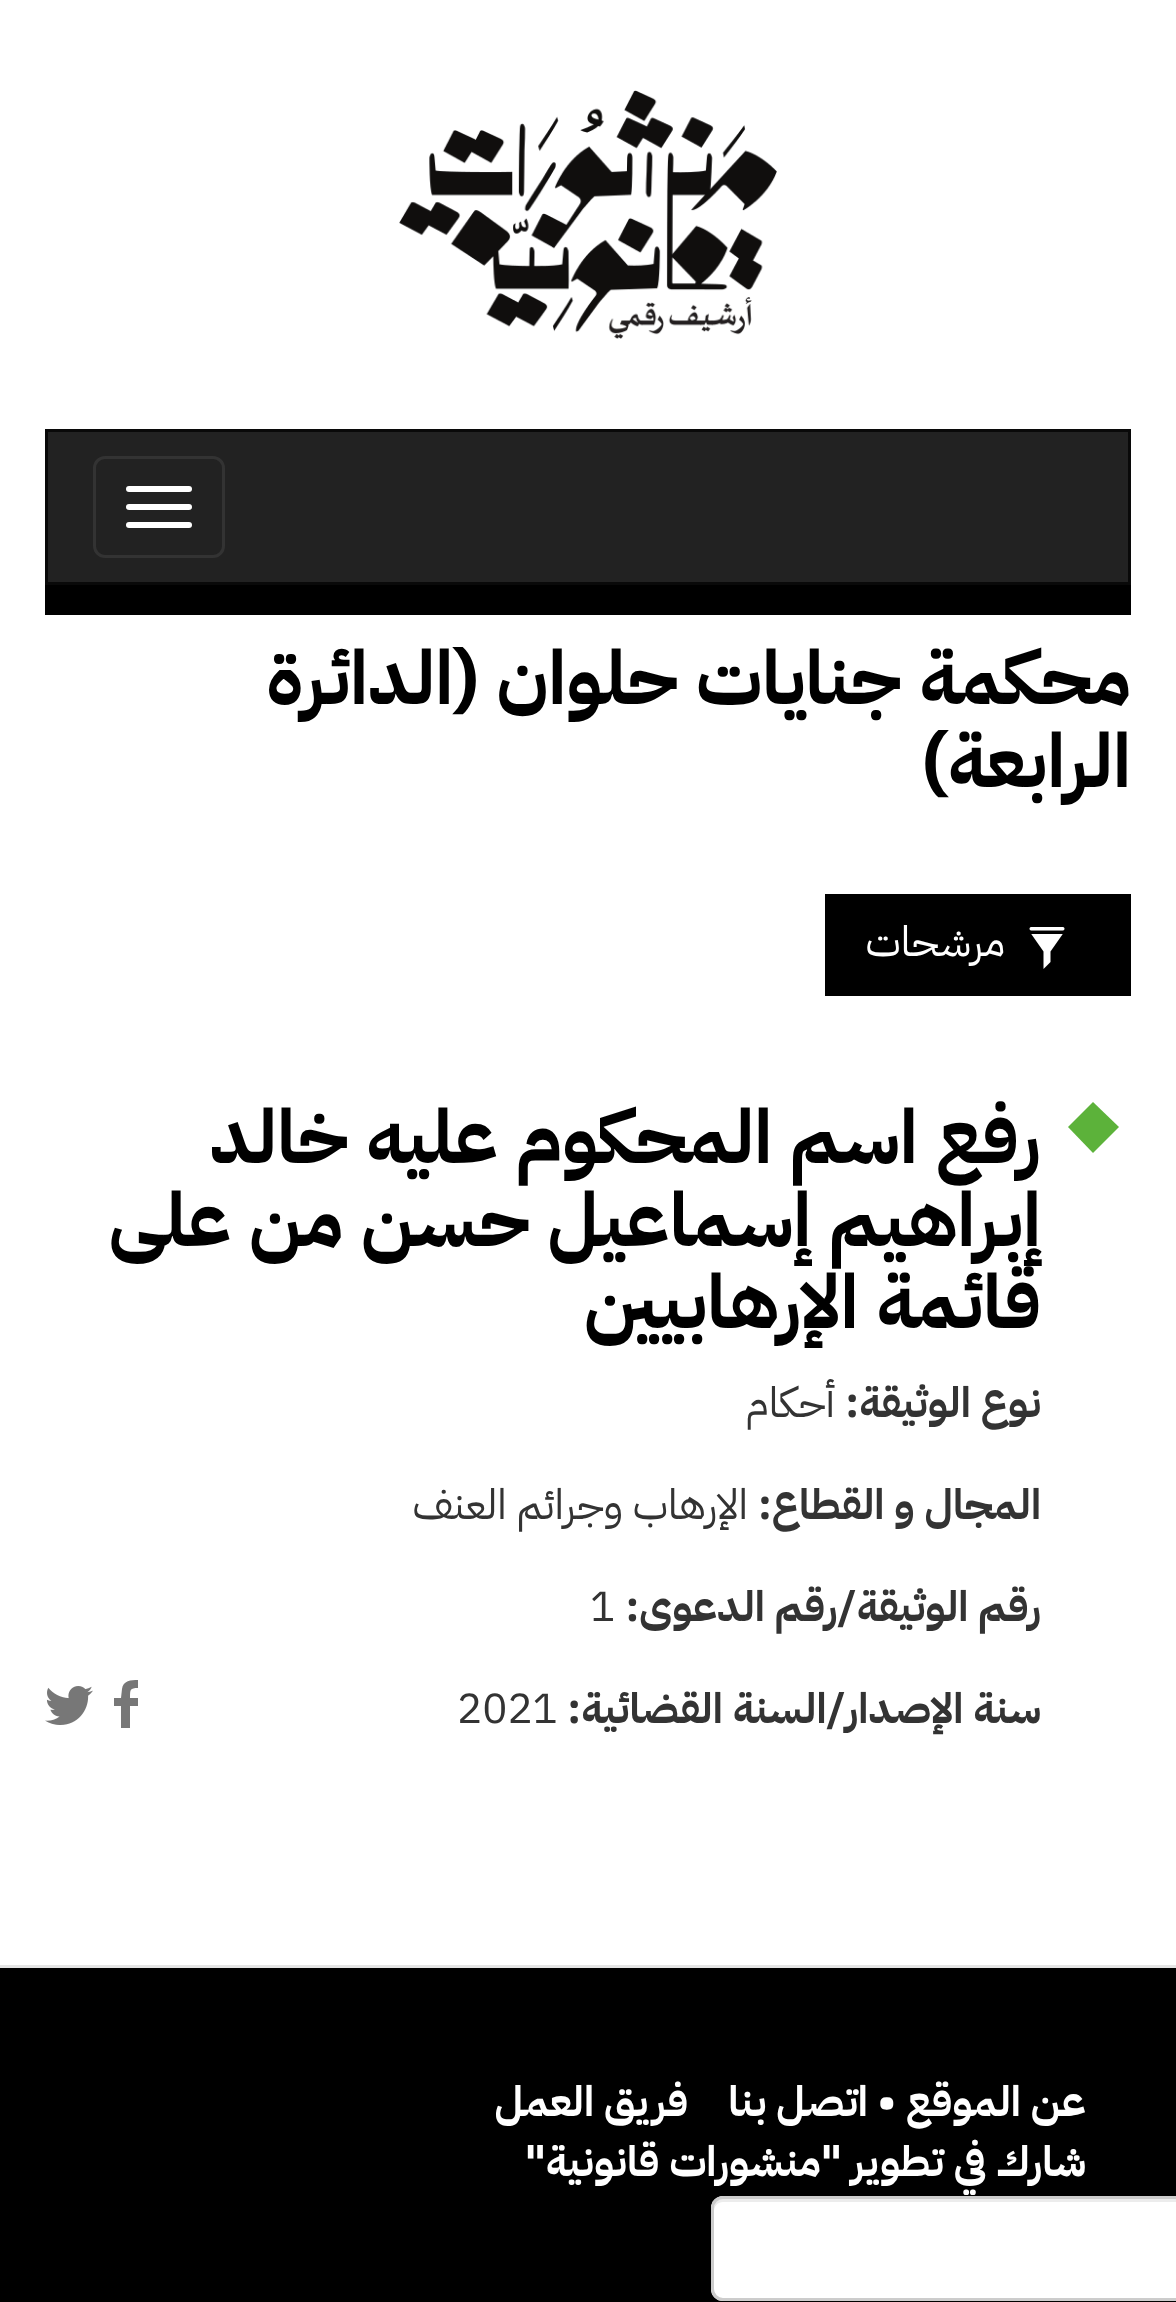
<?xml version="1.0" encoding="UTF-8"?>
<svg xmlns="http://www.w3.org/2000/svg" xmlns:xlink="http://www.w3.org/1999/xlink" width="1176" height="2302">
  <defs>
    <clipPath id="clip1"><rect x="114" y="1680" width="24" height="48" /></clipPath>
  </defs>
  <rect width="100%" height="100%" fill="#ffffff" />
  <image x="399" y="90" width="378" height="249" xlink:href="image1.png" />
  <rect x="46.5" y="430.5" width="1083" height="153" fill="#222222" stroke="#090909" stroke-width="3" />
  <rect x="94.5" y="457.5" width="129" height="99" rx="10.5" fill="none" stroke="#333333" stroke-width="3" />
  <rect x="126" y="486" width="66" height="6" rx="3" fill="#ffffff" />
  <rect x="126" y="504" width="66" height="6" rx="3" fill="#ffffff" />
  <rect x="126" y="522" width="66" height="6" rx="3" fill="#ffffff" />
  <rect x="45" y="585" width="1086" height="30" fill="#000000" />
  <rect x="825" y="894" width="306" height="102" fill="#000000" />
  <image x="1029" y="927" width="36" height="42" xlink:href="image2.png" />
  <path d="M 1093 1102 l 26 25 l -26 26 l -25 -26 z" fill="#5cb23a" />
  <g clip-path="url(#clip1)">
    <path d="M 130 1728 v -22 h 8 l 1 -8 h -9 c 0 -9 0 -10 9 -10 v -8 c -7 0 -16 0 -17 9 l -1 9 h -7 v 8 h 7 v 22 z" fill="#777777" />
  </g>
  <image x="45" y="1686" width="48" height="39" xlink:href="image3.png" />
  <rect y="1968" width="1176" height="334" fill="#000000" />
  <rect x="711" y="2196" width="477" height="105" rx="12" fill="#ffffff" />
  <path d="M 723 2202 h 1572 c 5 0 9 4 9 9 v -3 c 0 -5 -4 -9 -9 -9 h -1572 c -5 0 -9 4 -9 9 v 3 c 0 -5 4 -9 9 -9 z" fill="#ececec" />
  <rect x="712.5" y="2197.5" width="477" height="102" rx="10.5" fill="none" stroke="#cccccc" stroke-width="3" />
  <rect y="1965" width="1176" height="3" fill="#e5e5e5" />
  <text x="1131" y="704" style="font-family: IBM Plex Sans Arabic; font-size: 75px; font-weight: bold; direction: rtl; fill: #000000">محكمة جنايات حلوان (الدائرة</text>
  <text x="1131" y="787" style="font-family: IBM Plex Sans Arabic; font-size: 75px; font-weight: bold; direction: rtl; fill: #000000">الرابعة)</text>
  <text x="1005" y="956" style="font-family: IBM Plex Sans Arabic; font-size: 42px; direction: rtl; fill: #ffffff">مرشحات</text>
  <text x="1041" y="1163" style="font-family: IBM Plex Sans Arabic; font-size: 75px; font-weight: bold; direction: rtl; fill: #000000">رفع اسم المحكوم عليه خالد</text>
  <text x="1041" y="1246" style="font-family: IBM Plex Sans Arabic; font-size: 75px; font-weight: bold; direction: rtl; fill: #000000">إبراهيم إسماعيل حسن من على</text>
  <text x="1041" y="1328" style="font-family: IBM Plex Sans Arabic; font-size: 75px; font-weight: bold; direction: rtl; fill: #000000">قائمة الإرهابيين</text>
  <text x="1041" y="1417" style="font-family: IBM Plex Sans Arabic; font-size: 42px; font-weight: bold; direction: rtl; fill: #333333">نوع الوثيقة:</text>
  <text x="835" y="1417" style="font-family: IBM Plex Sans Arabic; font-size: 42px; direction: rtl; fill: #333333">أحكام</text>
  <text x="1041" y="1519" style="font-family: IBM Plex Sans Arabic; font-size: 42px; font-weight: bold; direction: rtl; fill: #333333">المجال و القطاع:</text>
  <text x="748" y="1519" style="font-family: IBM Plex Sans Arabic; font-size: 42px; direction: rtl; fill: #333333">الإرهاب وجرائم العنف</text>
  <text x="1041" y="1621" style="font-family: IBM Plex Sans Arabic; font-size: 42px; font-weight: bold; direction: rtl; fill: #333333">رقم الوثيقة/رقم الدعوى:</text>
  <text x="590" y="1621" style="font-family: IBM Plex Sans Arabic; font-size: 42px; fill: #333333">1</text>
  <text x="1041" y="1723" style="font-family: IBM Plex Sans Arabic; font-size: 42px; font-weight: bold; direction: rtl; fill: #333333">سنة الإصدار/السنة القضائية:</text>
  <text x="457" y="1723" style="font-family: IBM Plex Sans Arabic; font-size: 42px; fill: #333333">2021</text>
  <text x="1086" y="2116" style="font-family: IBM Plex Sans Arabic; font-size: 42px; font-weight: bold; direction: rtl; fill: #ffffff">عن الموقع • اتصل بنا</text>
  <text x="688" y="2116" style="font-family: IBM Plex Sans Arabic; font-size: 42px; font-weight: bold; direction: rtl; fill: #ffffff">فريق العمل</text>
  <text x="1086" y="2176" style="font-family: IBM Plex Sans Arabic; font-size: 42px; font-weight: bold; direction: rtl; fill: #ffffff">شارك في تطوير "منشورات قانونية"</text>
</svg>
